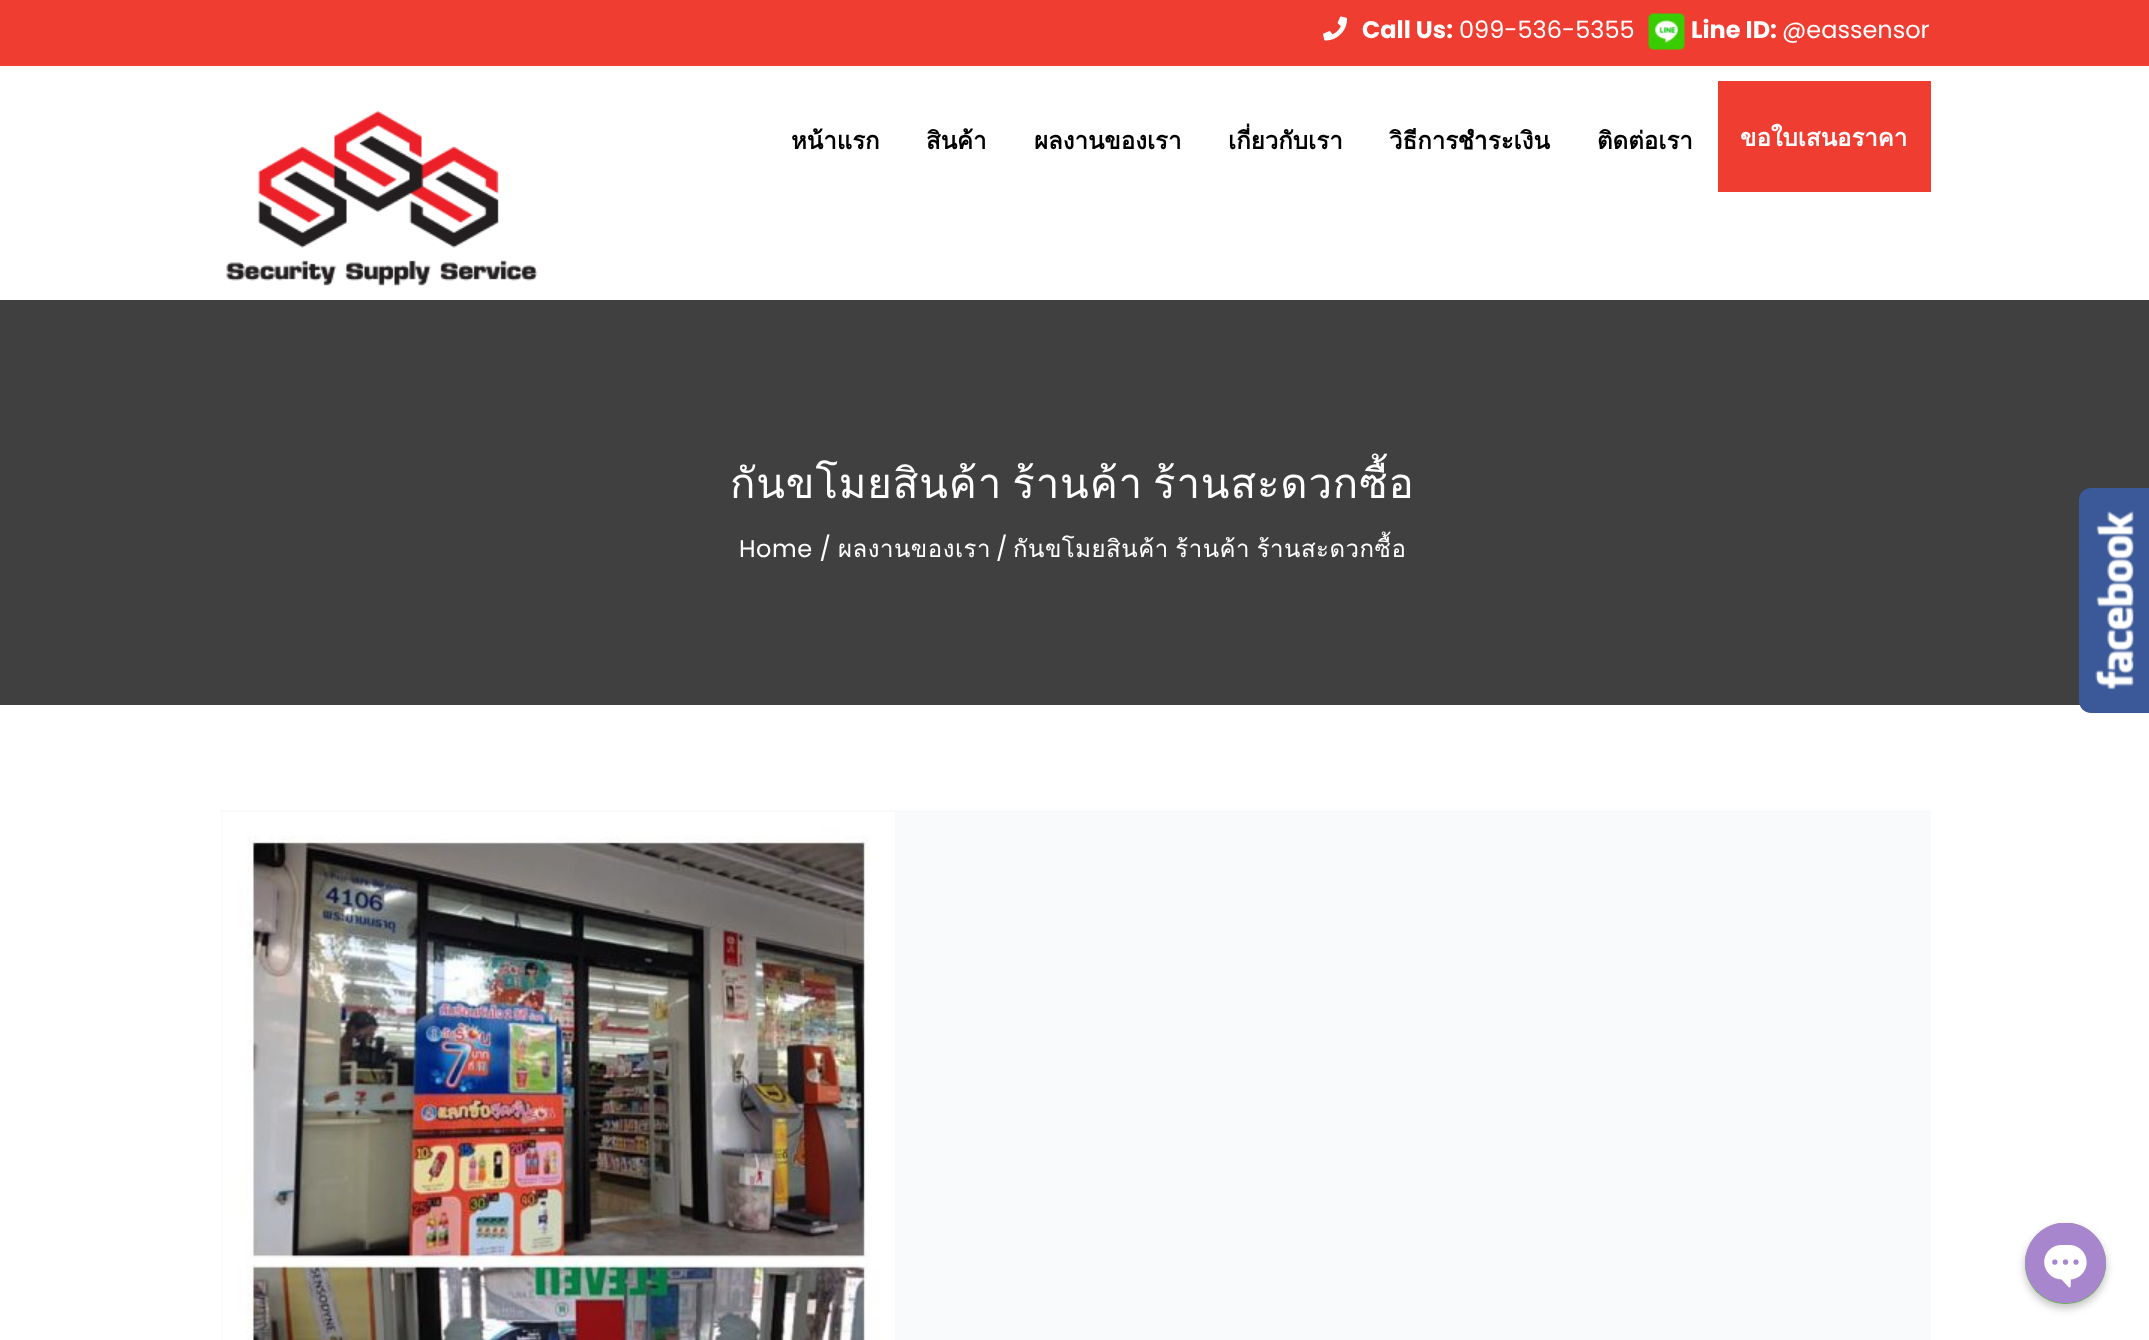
<?xml version="1.0" encoding="UTF-8"?>
<svg xmlns="http://www.w3.org/2000/svg" xmlns:xlink="http://www.w3.org/1999/xlink" width="2149" height="1340">
  <rect width="100%" height="100%" fill="#ffffff" />
  <rect width="2149" height="66" fill="#ef3d32" />
  <image x="1323" y="16" width="24" height="25" xlink:href="image1.png" />
  <image x="1648" y="13" width="37" height="37" xlink:href="image2.png" />
  <image x="226" y="110" width="312" height="176" xlink:href="image3.png" />
  <rect x="1718" y="81" width="213" height="111" fill="#ef3d32" />
  <rect y="300" width="2149" height="405" fill="#000000" fill-opacity="0.75" />
  <rect x="221" y="810" width="1710" height="530" fill="#f9fafb" />
  <image x="222" y="812" width="673" height="528" xlink:href="image4.png" />
  <path d="M 2091 488 h 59 v 225 h -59 c -6.5 0 -12 -5.5 -12 -12 v -201 c 0 -6.5 5.5 -12 12 -12 z" fill="#3b5998" />
  <image x="2095" y="511" width="39" height="179" xlink:href="image5.png" />
  <rect x="2025" y="1227" width="81" height="81" rx="40.5" fill="#000000" fill-opacity="0.25" filter="blur(4.5px)" />
  <circle cx="2065.5" cy="1263.5" r="40.5" fill="#39cd00" />
  <image x="2025" y="1223" width="81" height="81" xlink:href="image6.png" />
  <text x="1362" y="38" style="font-family: Poppins; font-size: 24px; font-weight: bold; fill: #ffffff">Call Us:</text>
  <text x="1459" y="38" style="font-family: Poppins; font-size: 24px; fill: #ffffff">099-536-5355</text>
  <text x="1691" y="38" style="font-family: Poppins; font-size: 24px; font-weight: bold; fill: #ffffff">Line ID:</text>
  <text x="1782" y="38" style="font-family: Poppins; font-size: 24px; fill: #ffffff">@eassensor</text>
  <text x="791" y="149" style="font-family: Loma; font-size: 24px; font-weight: bold; fill: #000000">หน้าแรก</text>
  <text x="926" y="149" style="font-family: Loma; font-size: 24px; font-weight: bold; fill: #000000">สินค้า</text>
  <text x="1034" y="149" style="font-family: Loma; font-size: 24px; font-weight: bold; fill: #000000">ผลงานของเรา</text>
  <text x="1228" y="149" style="font-family: Loma; font-size: 24px; font-weight: bold; fill: #000000">เกี่ยวกับเรา</text>
  <text x="1389" y="149" style="font-family: Loma; font-size: 24px; font-weight: bold; fill: #000000">วิธีการชำระเงิน</text>
  <text x="1597" y="149" style="font-family: Loma; font-size: 24px; font-weight: bold; fill: #000000">ติดต่อเรา</text>
  <text x="1740" y="146" style="font-family: Loma; font-size: 24px; font-weight: bold; fill: #ffffff">ขอใบเสนอราคา</text>
  <text x="730" y="498" word-spacing="-5" style="font-family: Loma; font-size: 42px; letter-spacing: 0.85px; fill: #ffffff">กันขโมยสินค้า ร้านค้า ร้านสะดวกซื้อ</text>
  <text x="739" y="557" style="font-family: Poppins; font-size: 24px; letter-spacing: 0.5px; fill: #ffffff">Home /</text>
  <text x="838" y="557" style="font-family: Loma; font-size: 24px; letter-spacing: 0.5px; fill: #ffffff">ผลงานของเรา</text>
  <text x="996" y="557" style="font-family: Poppins; font-size: 24px; letter-spacing: 0.5px; fill: #ffffff">/</text>
  <text x="1013" y="557" word-spacing="-2" style="font-family: Loma; font-size: 24px; letter-spacing: 0.5px; fill: #ffffff">กันขโมยสินค้า ร้านค้า ร้านสะดวกซื้อ</text>
</svg>
